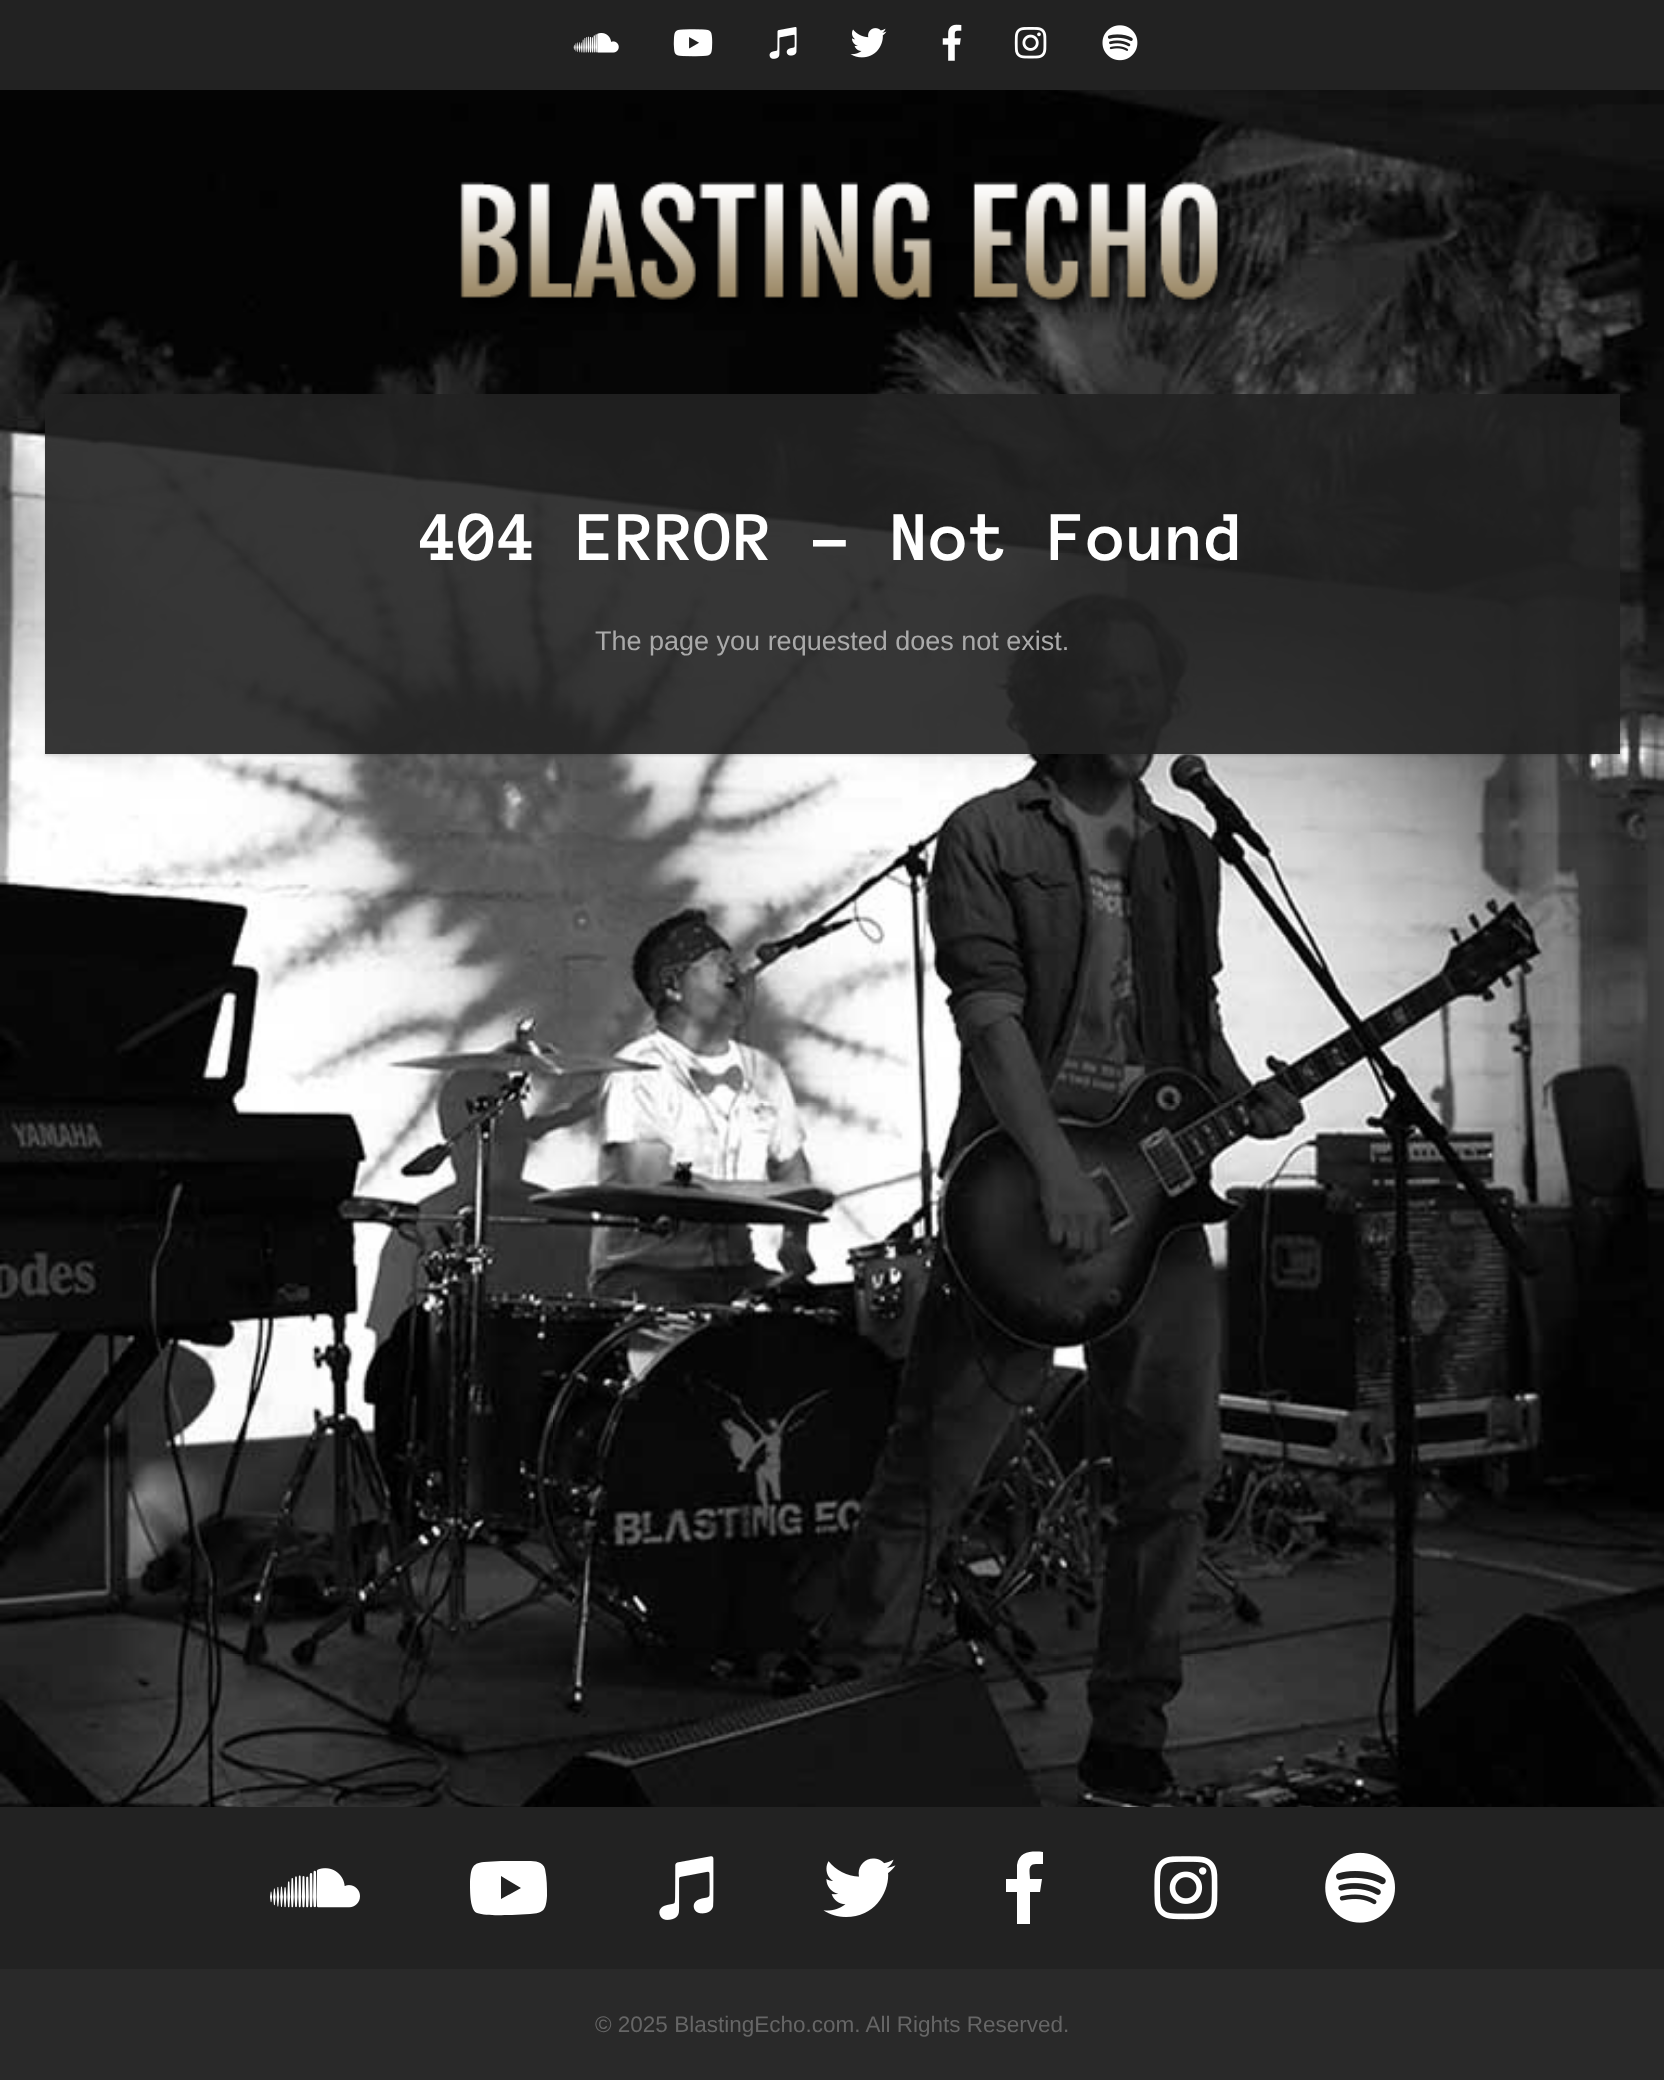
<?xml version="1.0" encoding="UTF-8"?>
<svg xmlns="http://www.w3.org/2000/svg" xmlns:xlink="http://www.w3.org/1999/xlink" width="1664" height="2080">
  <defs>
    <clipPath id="clip1"><path d="M 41 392 h 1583 v 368 h -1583 z m 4 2 h 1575 v 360 h -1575 z" clip-rule="evenodd" /></clipPath>
  </defs>
  <rect width="100%" height="100%" fill="#ffffff" />
  <image x="0" y="90" width="1664" height="1717" xlink:href="image1.png" />
  <rect width="1664" height="90" fill="#222222" />
  <image x="573" y="33" width="46" height="20" xlink:href="image2.png" />
  <image x="673" y="29" width="40" height="28" xlink:href="image3.png" />
  <image x="769" y="27" width="28" height="32" xlink:href="image4.png" />
  <image x="850" y="28" width="37" height="30" xlink:href="image5.png" />
  <image x="942" y="24" width="20" height="37" xlink:href="image6.png" />
  <image x="1014" y="27" width="33" height="32" xlink:href="image7.png" />
  <image x="1102" y="25" width="36" height="36" xlink:href="image8.png" />
  <image x="460" y="181" width="770" height="133" xlink:href="image9.png" />
  <g clip-path="url(#clip1)">
    <rect x="45" y="396" width="1575" height="360" fill="#000000" fill-opacity="0.1" filter="blur(1px)" />
  </g>
  <rect x="45" y="394" width="1575" height="360" fill="#222222" fill-opacity="0.91" />
  <rect y="1807" width="1664" height="162" fill="#222222" />
  <image x="270" y="1868" width="90" height="40" xlink:href="image10.png" />
  <path d="M 545 1869 c 2 9 2 19 2 27 c -1 14 -3 17 -17 18 l -18 1 c -9 0 -27 1 -35 -2 c -3 -1 -4 -4 -5 -7 c -2 -7 -2 -17 -2 -24 c 1 -12 1 -19 14 -20 l 17 -1 h 23 c 7 0 19 -1 21 8 z m -44 30 l 20 -11 l -20 -12 z" fill="#ffffff" />
  <image x="659" y="1856" width="55" height="64" xlink:href="image11.png" />
  <image x="823" y="1858" width="73" height="59" xlink:href="image12.png" />
  <path d="M 1036 1864 c -9 0 -6 9 -6 15 h 12 l -2 13 h -10 v 32 h -13 v -32 h -11 v -13 h 11 v -14 c 2 -14 15 -14 26 -13 v 12 z" fill="#ffffff" />
  <image x="1154" y="1856" width="64" height="64" xlink:href="image13.png" />
  <image x="1325" y="1852" width="70" height="71" xlink:href="image14.png" />
  <rect y="1969" width="1664" height="111" fill="#292929" />
  <text x="420" y="560" style="font-family: Anonymous Pro; font-size: 72px; font-weight: bold; fill: #ffffff">404 ERROR - Not Found</text>
  <text x="595" y="650" style="font-family: Liberation Sans; font-size: 27px; fill: #aaaaaa">The page you requested does not exist.</text>
  <text x="595" y="2032" style="font-family: Liberation Sans; font-size: 22.5px; fill: #666666">© 2025 BlastingEcho.com. All Rights Reserved.</text>
</svg>
